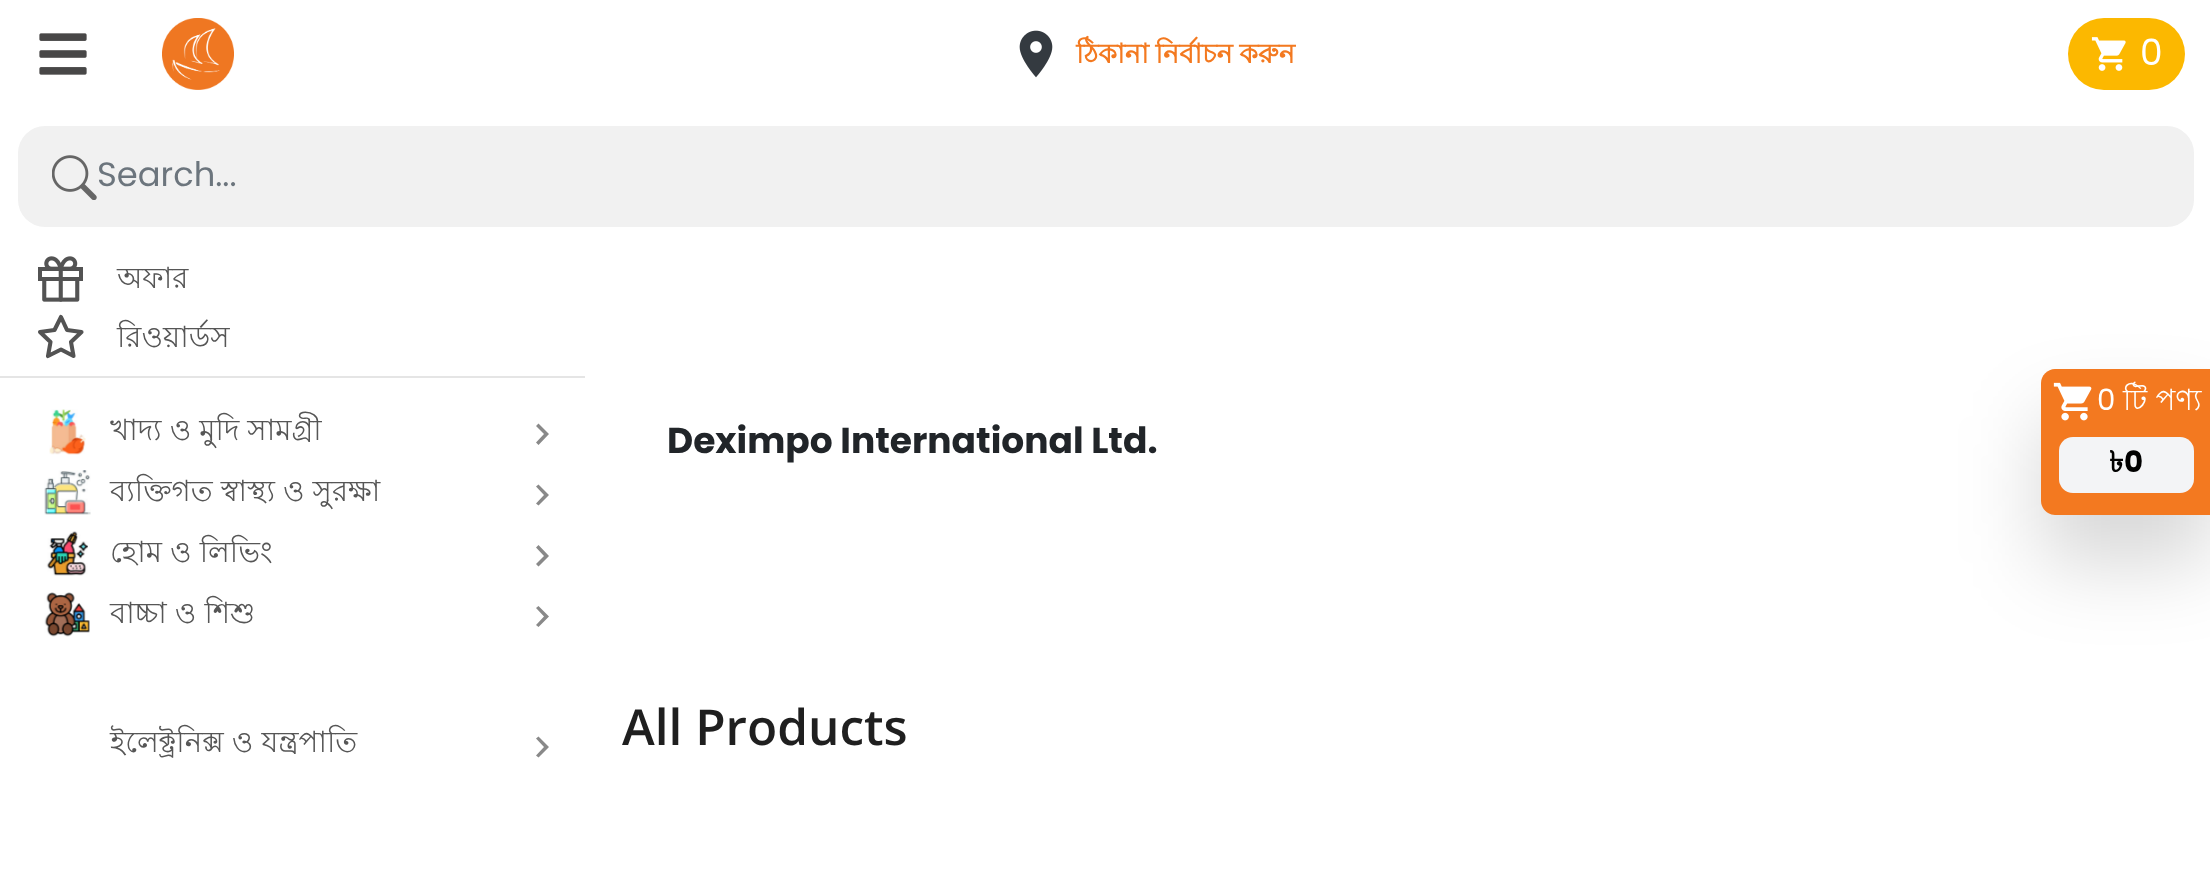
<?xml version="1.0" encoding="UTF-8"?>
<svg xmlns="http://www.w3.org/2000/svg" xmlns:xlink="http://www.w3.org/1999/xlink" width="2210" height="879">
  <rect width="100%" height="100%" fill="#ffffff" />
  <image x="39" y="33" width="48" height="42" xlink:href="image1.png" />
  <image x="162" y="18" width="72" height="72" xlink:href="image2.png" />
  <image x="1019" y="30" width="34" height="48" xlink:href="image3.png" />
  <rect x="2068" y="18" width="117" height="72" rx="36" fill="#fcb800" />
  <image x="2091" y="37" width="35" height="34" xlink:href="image4.png" />
  <rect x="18" y="126" width="2176" height="101" rx="27" fill="#f1f1f1" />
  <image x="52" y="155" width="45" height="45" xlink:href="image5.png" />
  <rect y="376" width="585" height="2" fill="#e5e5e5" />
  <image x="38" y="256" width="45" height="46" xlink:href="image6.png" />
  <path d="M 61 317 l 6 13 l 14.5 2 l -10.5 10 l 2.5 14 l -12.5 -6.5 l -13 6.5 l 2.5 -14 l -10.5 -10 l 14.5 -2 z" fill="none" stroke="#535353" stroke-width="4.1" stroke-linecap="round" stroke-linejoin="round" />
  <image x="49" y="409" width="37" height="46" xlink:href="image7.png" />
  <path d="M 544 434 l -8 -8 l 2.5 -2.5 l 10.5 10.5 l -10.5 11 l -2.5 -2.5 z" fill="#898989" />
  <image x="44" y="470" width="47" height="45" xlink:href="image8.png" />
  <path d="M 544 495 l -8 -8.5 l 2.5 -2 l 10.5 10.5 l -10.5 10.5 l -2.5 -2 z" fill="#898989" />
  <image x="46" y="531" width="42" height="45" xlink:href="image9.png" />
  <path d="M 544 556 l -8 -8.5 l 2.5 -2.5 l 10.5 11 l -10.5 10.5 l -2.5 -2.5 z" fill="#898989" />
  <image x="44" y="592" width="46" height="45" xlink:href="image10.png" />
  <path d="M 544 616.5 l -8 -8.5 l 2.5 -2 l 10.5 10.5 l -10.5 10.5 l -2.5 -2 z" fill="#898989" />
  <path d="M 544 747 l -8 -8.5 l 2.5 -2 l 10.5 10.5 l -10.5 10.5 l -2.5 -2 z" fill="#898989" />
  <rect x="2041" y="416" width="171" height="147" rx="14" fill="#000000" fill-opacity="0.16" filter="blur(40.5px)" />
  <path d="M 2055 369 h 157 v 146 h -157 c -7.5 0 -14 -6.5 -14 -14 v -118 c 0 -7.5 6.5 -14 14 -14 z" fill="#f37920" />
  <image x="2053" y="382" width="39" height="39" xlink:href="image11.png" />
  <rect x="2059" y="437" width="135" height="56" rx="14" fill="#f3f4f6" />
  <text x="1076" y="63" word-spacing="-1" style="font-family: Lohit Bengali; font-size: 27px; font-weight: bold; fill: #f37920">ঠিকানা নির্বাচন করুন</text>
  <text x="2140" y="65" style="font-family: Poppins; font-size: 36px; fill: #ffffff">0</text>
  <text x="97" y="186" style="font-family: Poppins; font-size: 33.75px; fill: #6c757d">Search...</text>
  <text x="117" y="288" style="font-family: Lohit Bengali; font-size: 29.25px; fill: #565656">অফার</text>
  <text x="117" y="347" style="font-family: Lohit Bengali; font-size: 29.25px; fill: #565656">রিওয়ার্ডস</text>
  <text x="110" y="440" style="font-family: Lohit Bengali; font-size: 29.25px; fill: #565656">খাদ্য ও মুদি সামগ্রী</text>
  <text x="110" y="501" style="font-family: Lohit Bengali; font-size: 29.25px; fill: #565656">ব্যক্তিগত স্বাস্থ্য ও সুরক্ষা</text>
  <text x="110" y="562" style="font-family: Lohit Bengali; font-size: 29.25px; fill: #565656">হোম ও লিভিং</text>
  <text x="110" y="623" style="font-family: Lohit Bengali; font-size: 29.25px; fill: #565656">বাচ্চা ও শিশু</text>
  <text x="110" y="752" style="font-family: Lohit Bengali; font-size: 29.25px; fill: #565656">ইলেক্ট্রনিক্স ও যন্ত্রপাতি</text>
  <text x="667" y="453" style="font-family: Poppins; font-size: 36px; font-weight: bold; fill: #212529">Deximpo International Ltd.</text>
  <text x="622" y="745" style="font-family: Open Sans; font-size: 49.5px; font-weight: 600; fill: #1f1f1f">All Products</text>
  <text x="2097" y="410" style="font-family: Poppins; font-size: 29.25px; fill: #ffffff">0</text>
  <text x="2123" y="410" style="font-family: Lohit Bengali; font-size: 29.25px; fill: #ffffff">টি পণ্য</text>
  <text x="2109" y="472" style="font-family: Lohit Bengali; font-size: 29.25px; font-weight: bold; fill: #000000">৳</text>
  <text x="2124" y="472" style="font-family: Poppins; font-size: 29.25px; font-weight: bold; fill: #000000">0</text>
</svg>
